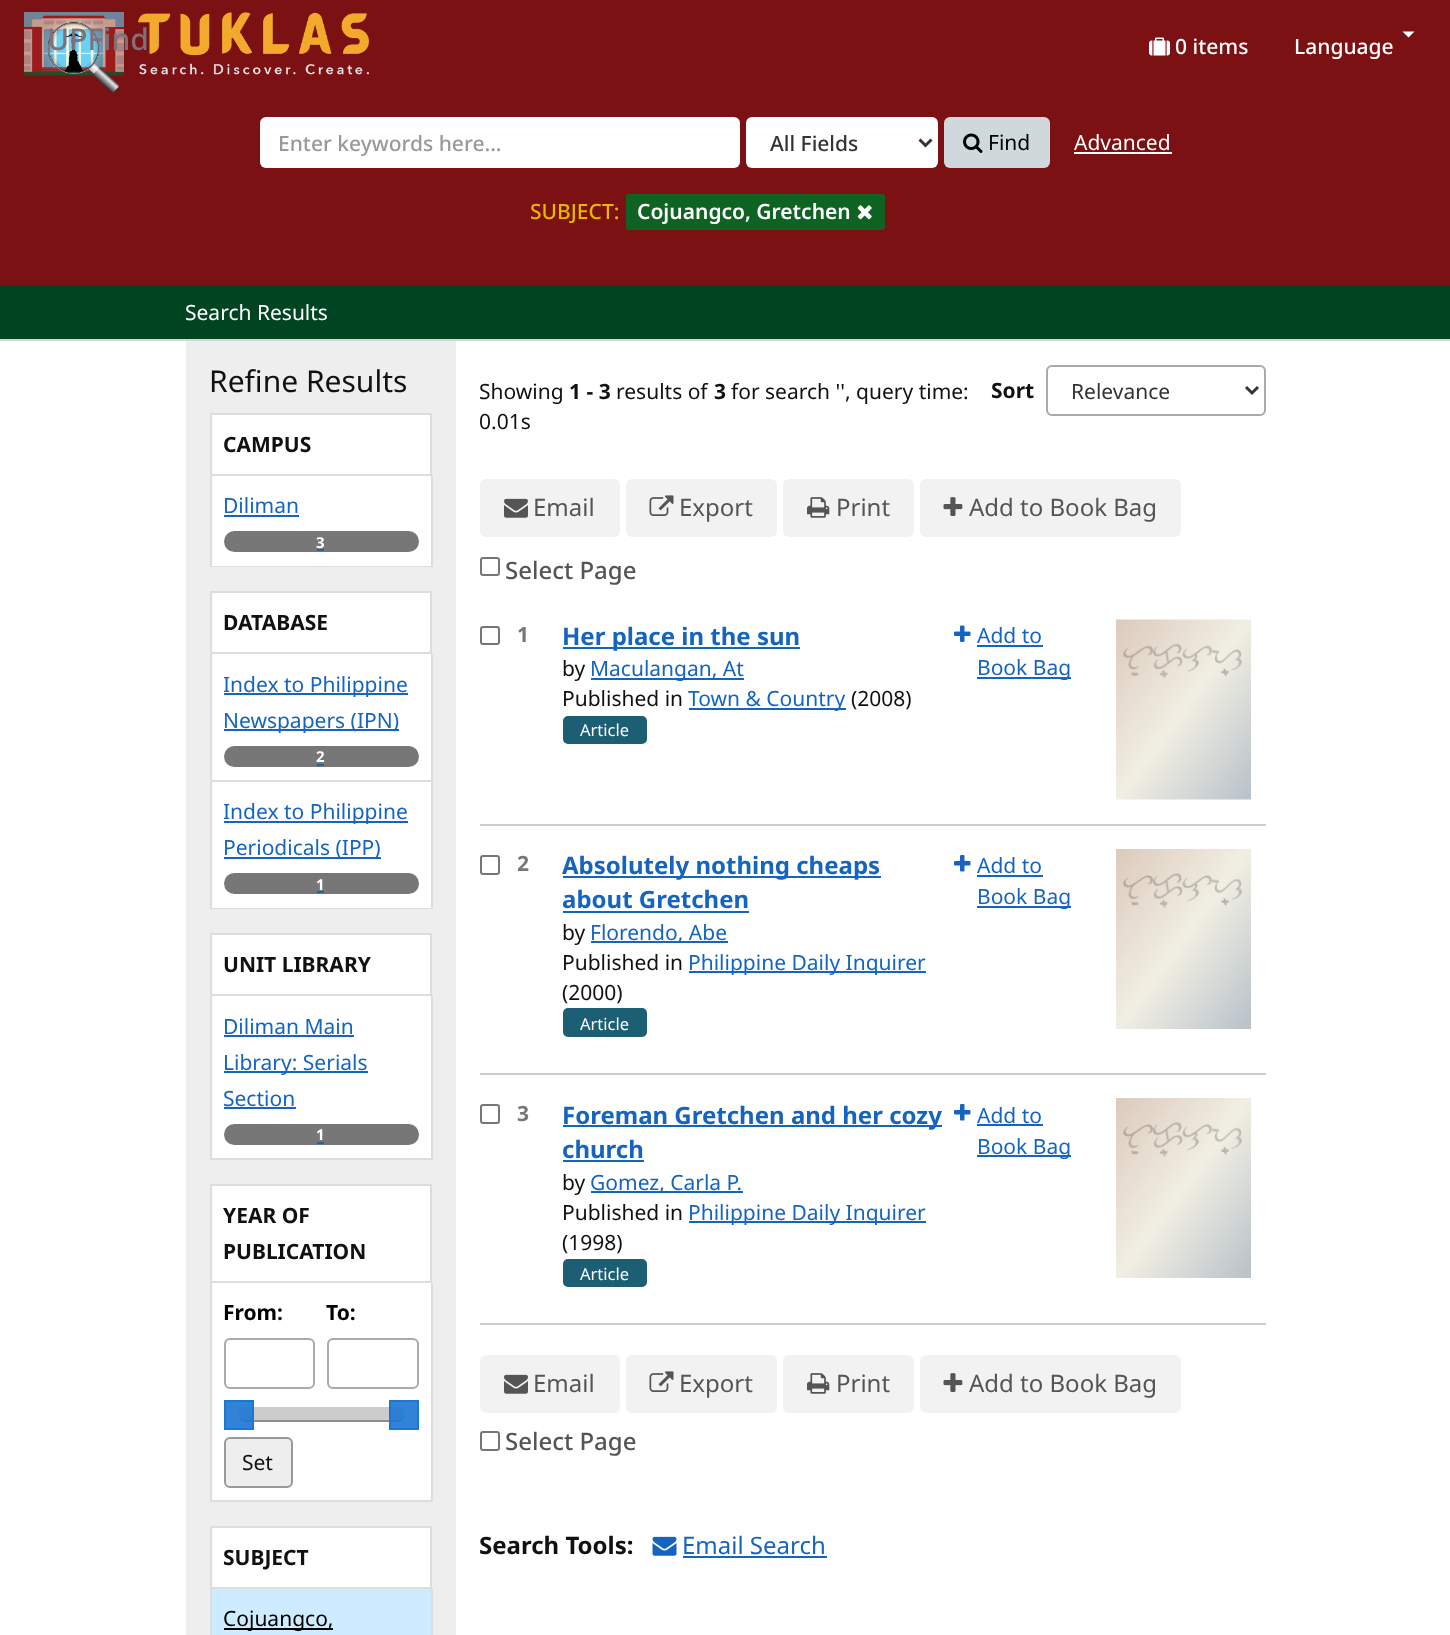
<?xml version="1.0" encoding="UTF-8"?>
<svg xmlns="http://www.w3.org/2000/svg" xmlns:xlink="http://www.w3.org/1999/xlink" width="1450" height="1635">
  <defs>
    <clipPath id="clip1"><rect x="224" y="666" width="195" height="72" /></clipPath>
    <clipPath id="clip2"><rect x="224" y="794" width="195" height="72" /></clipPath>
  </defs>
  <rect width="100%" height="100%" fill="#ffffff" />
  <rect width="1450" height="285" fill="#7b1113" />
  <image x="24" y="12" width="345" height="81" xlink:href="image1.png" />
  <image x="1149" y="37" width="21" height="19" xlink:href="image2.png" />
  <path d="M 1402.5 31.5 h 12 l -6 6 z" fill="#ffffff" />
  <rect x="260" y="117" width="480" height="51" rx="6" fill="#ffffff" />
  <rect x="746" y="117" width="192" height="51" rx="6" fill="#ffffff" />
  <path d="M 919.5 139.5 l 6 6 l 6 -6" fill="none" stroke="#333333" stroke-width="3" />
  <rect x="944" y="117" width="106" height="51" rx="6" fill="#cfd8dc" />
  <image x="963" y="133" width="20" height="20" xlink:href="image3.png" />
  <rect x="1074" y="152" width="98" height="2" fill="#ffffff" />
  <rect x="626" y="194" width="259" height="36" rx="3" fill="#0e6222" />
  <image x="857" y="205" width="15" height="15" xlink:href="image4.png" />
  <rect y="285" width="1450" height="54" fill="#014421" />
  <rect y="339" width="1450" height="2" fill="#cfd8dc" />
  <rect x="186" y="341" width="270" height="1294" fill="#eeeeee" />
  <rect x="212" y="415" width="219" height="151" fill="#ffffff" />
  <rect x="211" y="414" width="220" height="61" fill="none" stroke="#dddddd" stroke-width="2" />
  <rect x="431" y="476" width="2" height="91" fill="#dddddd" />
  <rect x="210" y="476" width="2" height="91" fill="#dddddd" />
  <rect x="212" y="566" width="219" height="1" fill="#dddddd" />
  <rect x="224" y="515" width="75" height="2" fill="#1565c0" />
  <rect x="224" y="531" width="195" height="21" rx="10.5" fill="#777777" />
  <rect x="317" y="549" width="7" height="2" fill="#1565c0" />
  <rect x="212" y="593" width="219" height="315" fill="#ffffff" />
  <rect x="211" y="592" width="220" height="61" fill="none" stroke="#dddddd" stroke-width="2" />
  <rect x="431" y="654" width="2" height="255" fill="#dddddd" />
  <rect x="210" y="654" width="2" height="255" fill="#dddddd" />
  <rect x="212" y="780" width="219" height="2" fill="#dddddd" />
  <rect x="224" y="693" width="184" height="2" fill="#1565c0" />
  <rect x="224" y="729" width="175" height="2" fill="#1565c0" />
  <rect x="224" y="746" width="195" height="21" rx="10.5" fill="#777777" />
  <rect x="317" y="764" width="7" height="2" fill="#1565c0" />
  <rect x="212" y="908" width="219" height="1" fill="#dddddd" />
  <rect x="224" y="821" width="184" height="2" fill="#1565c0" />
  <rect x="224" y="857" width="157" height="2" fill="#1565c0" />
  <rect x="224" y="873" width="195" height="21" rx="10.5" fill="#777777" />
  <rect x="317" y="891" width="7" height="2" fill="#1565c0" />
  <rect x="212" y="935" width="219" height="223" fill="#ffffff" />
  <rect x="211" y="934" width="220" height="61" fill="none" stroke="#dddddd" stroke-width="2" />
  <rect x="431" y="996" width="2" height="164" fill="#dddddd" />
  <rect x="210" y="996" width="2" height="164" fill="#dddddd" />
  <rect x="212" y="1158" width="219" height="2" fill="#dddddd" />
  <rect x="224" y="1035" width="130" height="2" fill="#1565c0" />
  <rect x="224" y="1071" width="144" height="2" fill="#1565c0" />
  <rect x="224" y="1107" width="72" height="2" fill="#1565c0" />
  <rect x="224" y="1124" width="195" height="21" rx="10.5" fill="#777777" />
  <rect x="317" y="1142" width="7" height="2" fill="#1565c0" />
  <rect x="212" y="1186" width="219" height="314" fill="#ffffff" />
  <rect x="211" y="1185" width="220" height="97" fill="none" stroke="#dddddd" stroke-width="2" />
  <rect x="431" y="1283" width="2" height="219" fill="#dddddd" />
  <rect x="210" y="1283" width="2" height="219" fill="#dddddd" />
  <rect x="212" y="1500" width="219" height="2" fill="#dddddd" />
  <rect x="225" y="1339" width="89" height="49" rx="5" fill="none" stroke="#aaaaaa" stroke-width="2" />
  <rect x="328" y="1339" width="90" height="49" rx="5" fill="none" stroke="#aaaaaa" stroke-width="2" />
  <rect x="239" y="1407" width="165" height="15" rx="6" fill="#cccccc" />
  <path d="M 239 1418 c 1 2 3 4 6 4 h 153 c 3 0 6 -3 6 -6 v -2 c 0 4 -3 6 -6 6 h -154 c -2 0 -4 -1 -5 -2 z" fill="#000000" fill-opacity="0.3" />
  <rect x="224" y="1400" width="30" height="30" fill="#1976d2" fill-opacity="0.9" />
  <rect x="225" y="1401" width="28" height="28" fill="none" stroke="#1976d2" stroke-opacity="0.9" stroke-width="2" />
  <rect x="389" y="1400" width="30" height="30" fill="#1976d2" fill-opacity="0.9" />
  <rect x="390" y="1401" width="28" height="28" fill="none" stroke="#1976d2" stroke-opacity="0.9" stroke-width="2" />
  <rect x="225" y="1438" width="67" height="49" rx="5" fill="#eeeeee" stroke="#999999" stroke-width="2" />
  <rect x="211" y="1527" width="220" height="61" fill="#ffffff" stroke="#dddddd" stroke-width="2" />
  <rect x="431" y="1589" width="2" height="46" fill="#dddddd" />
  <rect x="210" y="1589" width="2" height="46" fill="#dddddd" />
  <rect x="212" y="1589" width="219" height="46" fill="#cdecff" />
  <rect x="224" y="1628" width="109" height="2" fill="#000000" />
  <rect x="1047" y="366" width="218" height="49" rx="5" fill="none" stroke="#aaaaaa" stroke-width="2" />
  <path d="M 1246 387 l 6 6 l 6 -6" fill="none" stroke="#333333" stroke-width="3" />
  <rect x="480" y="479" width="140" height="58" rx="6" fill="#f2f2f2" />
  <image x="504" y="498" width="24" height="20" xlink:href="image5.png" />
  <rect x="626" y="479" width="151" height="58" rx="6" fill="#f2f2f2" />
  <image x="649" y="495" width="25" height="21" xlink:href="image6.png" />
  <rect x="783" y="479" width="131" height="58" rx="6" fill="#f2f2f2" />
  <image x="807" y="497" width="23" height="21" xlink:href="image7.png" />
  <rect x="920" y="479" width="261" height="58" rx="6" fill="#f2f2f2" />
  <image x="943" y="497" width="20" height="19" xlink:href="image8.png" />
  <rect x="481" y="558" width="18" height="17" rx="2" fill="none" stroke="#767676" stroke-width="2" />
  <rect x="480" y="824" width="786" height="2" fill="#cccccc" />
  <rect x="481" y="627" width="18" height="17" rx="2" fill="none" stroke="#767676" stroke-width="2" />
  <rect x="563" y="647" width="237" height="2" fill="#1565c0" />
  <rect x="591" y="678" width="153" height="2" fill="#1565c0" />
  <rect x="689" y="708" width="157" height="2" fill="#1565c0" />
  <rect x="563" y="716" width="84" height="28" rx="5" fill="#1c5f74" />
  <image x="954" y="625" width="17" height="17" xlink:href="image9.png" />
  <rect x="977" y="645" width="66" height="2" fill="#1565c0" />
  <rect x="977" y="677" width="94" height="2" fill="#1565c0" />
  <image x="1116" y="619" width="135" height="181" xlink:href="image10.png" />
  <rect x="480" y="1073" width="786" height="2" fill="#cccccc" />
  <rect x="481" y="856" width="18" height="18" rx="2" fill="none" stroke="#767676" stroke-width="2" />
  <rect x="563" y="876" width="318" height="2" fill="#1565c0" />
  <rect x="563" y="911" width="186" height="2" fill="#1565c0" />
  <rect x="591" y="941" width="137" height="2" fill="#1565c0" />
  <rect x="689" y="971" width="237" height="2" fill="#1565c0" />
  <rect x="563" y="1008" width="84" height="29" rx="5" fill="#1c5f74" />
  <image x="954" y="855" width="17" height="17" xlink:href="image11.png" />
  <rect x="977" y="875" width="66" height="2" fill="#1565c0" />
  <rect x="977" y="906" width="94" height="2" fill="#1565c0" />
  <image x="1116" y="849" width="135" height="180" xlink:href="image12.png" />
  <rect x="480" y="1323" width="786" height="2" fill="#cccccc" />
  <rect x="481" y="1105" width="18" height="18" rx="2" fill="none" stroke="#767676" stroke-width="2" />
  <rect x="563" y="1125" width="379" height="2" fill="#1565c0" />
  <rect x="563" y="1160" width="81" height="2" fill="#1565c0" />
  <rect x="591" y="1191" width="152" height="2" fill="#1565c0" />
  <rect x="689" y="1221" width="237" height="2" fill="#1565c0" />
  <rect x="563" y="1259" width="84" height="28" rx="5" fill="#1c5f74" />
  <image x="954" y="1104" width="17" height="17" xlink:href="image11.png" />
  <rect x="977" y="1124" width="66" height="2" fill="#1565c0" />
  <rect x="977" y="1155" width="94" height="2" fill="#1565c0" />
  <image x="1116" y="1098" width="135" height="180" xlink:href="image13.png" />
  <rect x="480" y="1355" width="140" height="58" rx="6" fill="#f2f2f2" />
  <image x="504" y="1374" width="24" height="20" xlink:href="image5.png" />
  <rect x="626" y="1355" width="151" height="58" rx="6" fill="#f2f2f2" />
  <image x="649" y="1371" width="25" height="21" xlink:href="image6.png" />
  <rect x="783" y="1355" width="131" height="58" rx="6" fill="#f2f2f2" />
  <image x="807" y="1373" width="23" height="21" xlink:href="image7.png" />
  <rect x="920" y="1355" width="261" height="58" rx="6" fill="#f2f2f2" />
  <image x="943" y="1373" width="20" height="19" xlink:href="image8.png" />
  <rect x="481" y="1432" width="18" height="18" rx="2" fill="none" stroke="#767676" stroke-width="2" />
  <image x="652" y="1536" width="25" height="20" xlink:href="image14.png" />
  <rect x="683" y="1556" width="144" height="2" fill="#1565c0" />
  <text x="47" y="50" style="font-family: Noto Sans; font-size: 30px; font-weight: 500; fill: #80707a">UPFind</text>
  <text x="1175" y="54" style="font-family: Noto Sans; font-size: 21px; font-weight: 500; fill: #ffffff">0 items</text>
  <text x="1294" y="54" style="font-family: Noto Sans; font-size: 21px; font-weight: 500; fill: #ffffff">Language</text>
  <text x="278" y="151" style="font-family: Noto Sans; font-size: 21px; font-weight: 500; fill: #999999">Enter keywords here...</text>
  <text x="770" y="151" style="font-family: Noto Sans; font-size: 21px; font-weight: 500; fill: #333333">All Fields</text>
  <text x="988" y="150" style="font-family: Noto Sans; font-size: 21px; fill: #000000">Find</text>
  <text x="1074" y="150" style="font-family: Noto Sans; font-size: 21px; fill: #ffffff">Advanced</text>
  <text x="530" y="219" style="font-family: Noto Sans; font-size: 21px; font-weight: 500; fill: #e6b800">SUBJECT:</text>
  <text x="637" y="219" style="font-family: Noto Sans; font-size: 21px; font-weight: 600; fill: #ffffff">Cojuangco, Gretchen</text>
  <text x="185" y="320" style="font-family: Noto Sans; font-size: 21px; fill: #ffffff">Search Results</text>
  <text x="209" y="392" style="font-family: Noto Sans; font-size: 30px; fill: #111111">Refine Results</text>
  <text x="223" y="452" style="font-family: Noto Sans; font-size: 21px; font-weight: bold; fill: #111111">CAMPUS</text>
  <text x="223" y="513" style="font-family: Noto Sans; font-size: 21px; fill: #1565c0">Diliman</text>
  <text x="316" y="548" style="font-family: Noto Sans; font-size: 15px; font-weight: bold; fill: #ffffff">3</text>
  <text x="223" y="630" style="font-family: Noto Sans; font-size: 21px; font-weight: bold; fill: #111111">DATABASE</text>
  <g clip-path="url(#clip1)">
    <text x="223" y="692" style="font-family: Noto Sans; font-size: 21px; fill: #1565c0">Index to Philippine</text>
  </g>
  <text x="223" y="728" style="font-family: Noto Sans; font-size: 21px; fill: #1565c0">Newspapers (IPN)</text>
  <text x="316" y="762" style="font-family: Noto Sans; font-size: 15px; font-weight: bold; fill: #ffffff">2</text>
  <g clip-path="url(#clip2)">
    <text x="223" y="819" style="font-family: Noto Sans; font-size: 21px; fill: #1565c0">Index to Philippine</text>
  </g>
  <text x="223" y="855" style="font-family: Noto Sans; font-size: 21px; fill: #1565c0">Periodicals (IPP)</text>
  <text x="316" y="890" style="font-family: Noto Sans; font-size: 15px; font-weight: bold; fill: #ffffff">1</text>
  <text x="223" y="972" style="font-family: Noto Sans; font-size: 21px; font-weight: bold; fill: #111111">UNIT LIBRARY</text>
  <text x="223" y="1034" style="font-family: Noto Sans; font-size: 21px; fill: #1565c0">Diliman Main</text>
  <text x="223" y="1070" style="font-family: Noto Sans; font-size: 21px; fill: #1565c0">Library: Serials</text>
  <text x="223" y="1106" style="font-family: Noto Sans; font-size: 21px; fill: #1565c0">Section</text>
  <text x="316" y="1140" style="font-family: Noto Sans; font-size: 15px; font-weight: bold; fill: #ffffff">1</text>
  <text x="223" y="1223" style="font-family: Noto Sans; font-size: 21px; font-weight: bold; fill: #111111">YEAR OF</text>
  <text x="223" y="1259" style="font-family: Noto Sans; font-size: 21px; font-weight: bold; fill: #111111">PUBLICATION</text>
  <text x="223" y="1320" style="font-family: Noto Sans; font-size: 21px; font-weight: bold; fill: #000000">From:</text>
  <text x="326" y="1320" style="font-family: Noto Sans; font-size: 21px; font-weight: bold; fill: #000000">To:</text>
  <text x="242" y="1470" style="font-family: Noto Sans; font-size: 21px; fill: #111111">Set</text>
  <text x="223" y="1565" style="font-family: Noto Sans; font-size: 21px; font-weight: bold; fill: #111111">SUBJECT</text>
  <text x="223" y="1626" style="font-family: Noto Sans; font-size: 21px; fill: #000000">Cojuangco,</text>
  <text x="479" y="399" style="font-family: Noto Sans; font-size: 21px; fill: #111111">Showing</text>
  <text x="569" y="399" style="font-family: Noto Sans; font-size: 21px; font-weight: bold; fill: #111111">1 - 3</text>
  <text x="616" y="399" style="font-family: Noto Sans; font-size: 21px; fill: #111111">results of</text>
  <text x="714" y="399" style="font-family: Noto Sans; font-size: 21px; font-weight: bold; fill: #111111">3</text>
  <text x="731" y="399" style="font-family: Noto Sans; font-size: 21px; fill: #111111">for search '', query time:</text>
  <text x="479" y="429" style="font-family: Noto Sans; font-size: 21px; fill: #111111">0.01s</text>
  <text x="991" y="398" style="font-family: Noto Sans; font-size: 21px; font-weight: bold; fill: #111111">Sort</text>
  <text x="1071" y="399" style="font-family: Noto Sans; font-size: 21px; fill: #333333">Relevance</text>
  <text x="533" y="516" style="font-family: Noto Sans; font-size: 24px; fill: #555555">Email</text>
  <text x="679" y="516" style="font-family: Noto Sans; font-size: 24px; fill: #555555">Export</text>
  <text x="836" y="516" style="font-family: Noto Sans; font-size: 24px; fill: #555555">Print</text>
  <text x="969" y="516" style="font-family: Noto Sans; font-size: 24px; fill: #555555">Add to Book Bag</text>
  <text x="505" y="579" style="font-family: Noto Sans; font-size: 24px; font-weight: 500; fill: #555555">Select Page</text>
  <text x="517" y="642" style="font-family: Noto Sans; font-size: 21px; font-weight: bold; fill: #777777">1</text>
  <text x="562" y="645" style="font-family: Noto Sans; font-size: 24px; font-weight: bold; fill: #1565c0">Her place in the sun</text>
  <text x="562" y="676" style="font-family: Noto Sans; font-size: 21px; fill: #111111">by</text>
  <text x="590" y="676" style="font-family: Noto Sans; font-size: 21px; fill: #1565c0">Maculangan, At</text>
  <text x="562" y="706" style="font-family: Noto Sans; font-size: 21px; fill: #111111">Published in</text>
  <text x="688" y="706" style="font-family: Noto Sans; font-size: 21px; fill: #1565c0">Town &amp; Country</text>
  <text x="851" y="706" style="font-family: Noto Sans; font-size: 21px; fill: #111111">(2008)</text>
  <text x="580" y="736" style="font-family: Noto Sans; font-size: 16.5px; fill: #ffffff">Article</text>
  <text x="977" y="643" style="font-family: Noto Sans; font-size: 21px; fill: #1565c0">Add to</text>
  <text x="977" y="675" style="font-family: Noto Sans; font-size: 21px; fill: #1565c0">Book Bag</text>
  <text x="517" y="871" style="font-family: Noto Sans; font-size: 21px; font-weight: bold; fill: #777777">2</text>
  <text x="562" y="874" style="font-family: Noto Sans; font-size: 24px; font-weight: bold; fill: #1565c0">Absolutely nothing cheaps</text>
  <text x="562" y="908" style="font-family: Noto Sans; font-size: 24px; font-weight: bold; fill: #1565c0">about Gretchen</text>
  <text x="562" y="940" style="font-family: Noto Sans; font-size: 21px; fill: #111111">by</text>
  <text x="590" y="940" style="font-family: Noto Sans; font-size: 21px; fill: #1565c0">Florendo, Abe</text>
  <text x="562" y="970" style="font-family: Noto Sans; font-size: 21px; fill: #111111">Published in</text>
  <text x="688" y="970" style="font-family: Noto Sans; font-size: 21px; fill: #1565c0">Philippine Daily Inquirer</text>
  <text x="562" y="1000" style="font-family: Noto Sans; font-size: 21px; fill: #111111">(2000)</text>
  <text x="580" y="1030" style="font-family: Noto Sans; font-size: 16.5px; fill: #ffffff">Article</text>
  <text x="977" y="873" style="font-family: Noto Sans; font-size: 21px; fill: #1565c0">Add to</text>
  <text x="977" y="904" style="font-family: Noto Sans; font-size: 21px; fill: #1565c0">Book Bag</text>
  <text x="517" y="1121" style="font-family: Noto Sans; font-size: 21px; font-weight: bold; fill: #777777">3</text>
  <text x="562" y="1124" style="font-family: Noto Sans; font-size: 24px; font-weight: bold; fill: #1565c0">Foreman Gretchen and her cozy</text>
  <text x="562" y="1158" style="font-family: Noto Sans; font-size: 24px; font-weight: bold; fill: #1565c0">church</text>
  <text x="562" y="1190" style="font-family: Noto Sans; font-size: 21px; fill: #111111">by</text>
  <text x="590" y="1190" style="font-family: Noto Sans; font-size: 21px; fill: #1565c0">Gomez, Carla P.</text>
  <text x="562" y="1220" style="font-family: Noto Sans; font-size: 21px; fill: #111111">Published in</text>
  <text x="688" y="1220" style="font-family: Noto Sans; font-size: 21px; fill: #1565c0">Philippine Daily Inquirer</text>
  <text x="562" y="1250" style="font-family: Noto Sans; font-size: 21px; fill: #111111">(1998)</text>
  <text x="580" y="1280" style="font-family: Noto Sans; font-size: 16.5px; fill: #ffffff">Article</text>
  <text x="977" y="1123" style="font-family: Noto Sans; font-size: 21px; fill: #1565c0">Add to</text>
  <text x="977" y="1154" style="font-family: Noto Sans; font-size: 21px; fill: #1565c0">Book Bag</text>
  <text x="533" y="1392" style="font-family: Noto Sans; font-size: 24px; fill: #555555">Email</text>
  <text x="679" y="1392" style="font-family: Noto Sans; font-size: 24px; fill: #555555">Export</text>
  <text x="836" y="1392" style="font-family: Noto Sans; font-size: 24px; fill: #555555">Print</text>
  <text x="969" y="1392" style="font-family: Noto Sans; font-size: 24px; fill: #555555">Add to Book Bag</text>
  <text x="505" y="1450" style="font-family: Noto Sans; font-size: 24px; font-weight: 500; fill: #555555">Select Page</text>
  <text x="479" y="1554" style="font-family: Noto Sans; font-size: 24px; font-weight: bold; fill: #111111">Search Tools:</text>
  <text x="682" y="1554" style="font-family: Noto Sans; font-size: 24px; fill: #1565c0">Email Search</text>
</svg>
